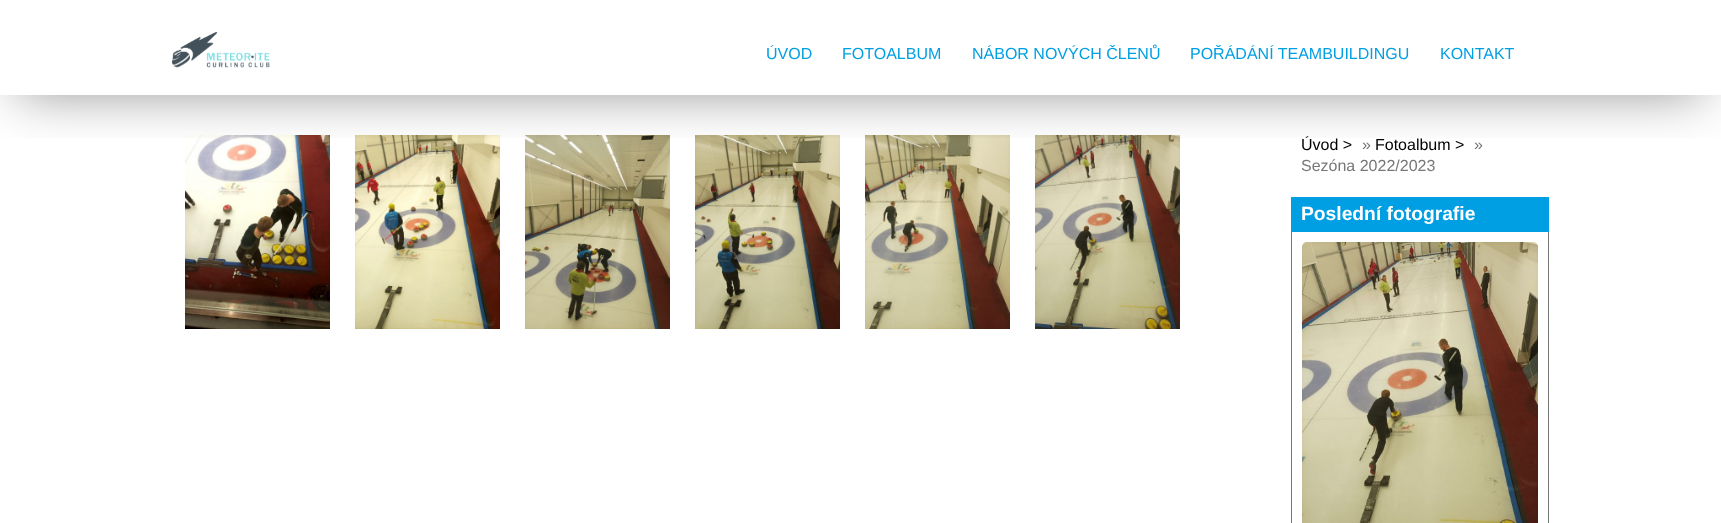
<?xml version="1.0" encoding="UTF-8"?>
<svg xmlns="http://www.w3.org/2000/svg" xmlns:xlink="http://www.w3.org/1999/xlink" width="1721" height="523">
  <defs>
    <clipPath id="clip1"><rect x="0" y="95" width="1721" height="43" /></clipPath>
  </defs>
  <rect width="100%" height="100%" fill="#ffffff" />
  <image x="185" y="135" width="145" height="194" xlink:href="image2.png" />
  <image x="355" y="135" width="145" height="194" xlink:href="image3.png" />
  <image x="525" y="135" width="145" height="194" xlink:href="image4.png" />
  <image x="695" y="135" width="145" height="194" xlink:href="image5.png" />
  <image x="865" y="135" width="145" height="194" xlink:href="image6.png" />
  <image x="1035" y="135" width="145" height="194" xlink:href="image7.png" />
  <g clip-path="url(#clip1)">
    <rect x="18" y="33" width="1685" height="59" fill="#000000" fill-opacity="0.45" filter="blur(27px)" />
  </g>
  <image x="172" y="32" width="98" height="36" xlink:href="image1.png" />
  <rect x="1291" y="197" width="258" height="35" fill="#009fe3" />
  <rect x="1548" y="232" width="1" height="291" fill="#777777" />
  <rect x="1291" y="232" width="1" height="291" fill="#777777" />
  <image x="1302" y="242" width="236" height="281" xlink:href="image8.png" />
  <text x="766" y="59" style="font-family: Liberation Sans; font-size: 16px; fill: #009fe3">ÚVOD</text>
  <text x="842" y="59" style="font-family: Liberation Sans; font-size: 16px; fill: #009fe3">FOTOALBUM</text>
  <text x="972" y="59" style="font-family: Liberation Sans; font-size: 16px; fill: #009fe3">NÁBOR NOVÝCH ČLENŮ</text>
  <text x="1190" y="59" style="font-family: Liberation Sans; font-size: 16px; fill: #009fe3">POŘÁDÁNÍ TEAMBUILDINGU</text>
  <text x="1440" y="59" style="font-family: Liberation Sans; font-size: 16px; fill: #009fe3">KONTAKT</text>
  <text x="1301" y="150" style="font-family: Liberation Sans; font-size: 16px; fill: #000000">Úvod &gt;</text>
  <text x="1362" y="150" style="font-family: Liberation Sans; font-size: 16px; fill: #777777">»</text>
  <text x="1375" y="150" style="font-family: Liberation Sans; font-size: 16px; fill: #000000">Fotoalbum &gt;</text>
  <text x="1474" y="150" style="font-family: Liberation Sans; font-size: 16px; fill: #777777">»</text>
  <text x="1301" y="171" style="font-family: Liberation Sans; font-size: 16px; fill: #777777">Sezóna 2022/2023</text>
  <text x="1301" y="220" style="font-family: Liberation Sans; font-size: 19.25px; font-weight: bold; fill: #ffffff">Poslední fotografie</text>
</svg>
